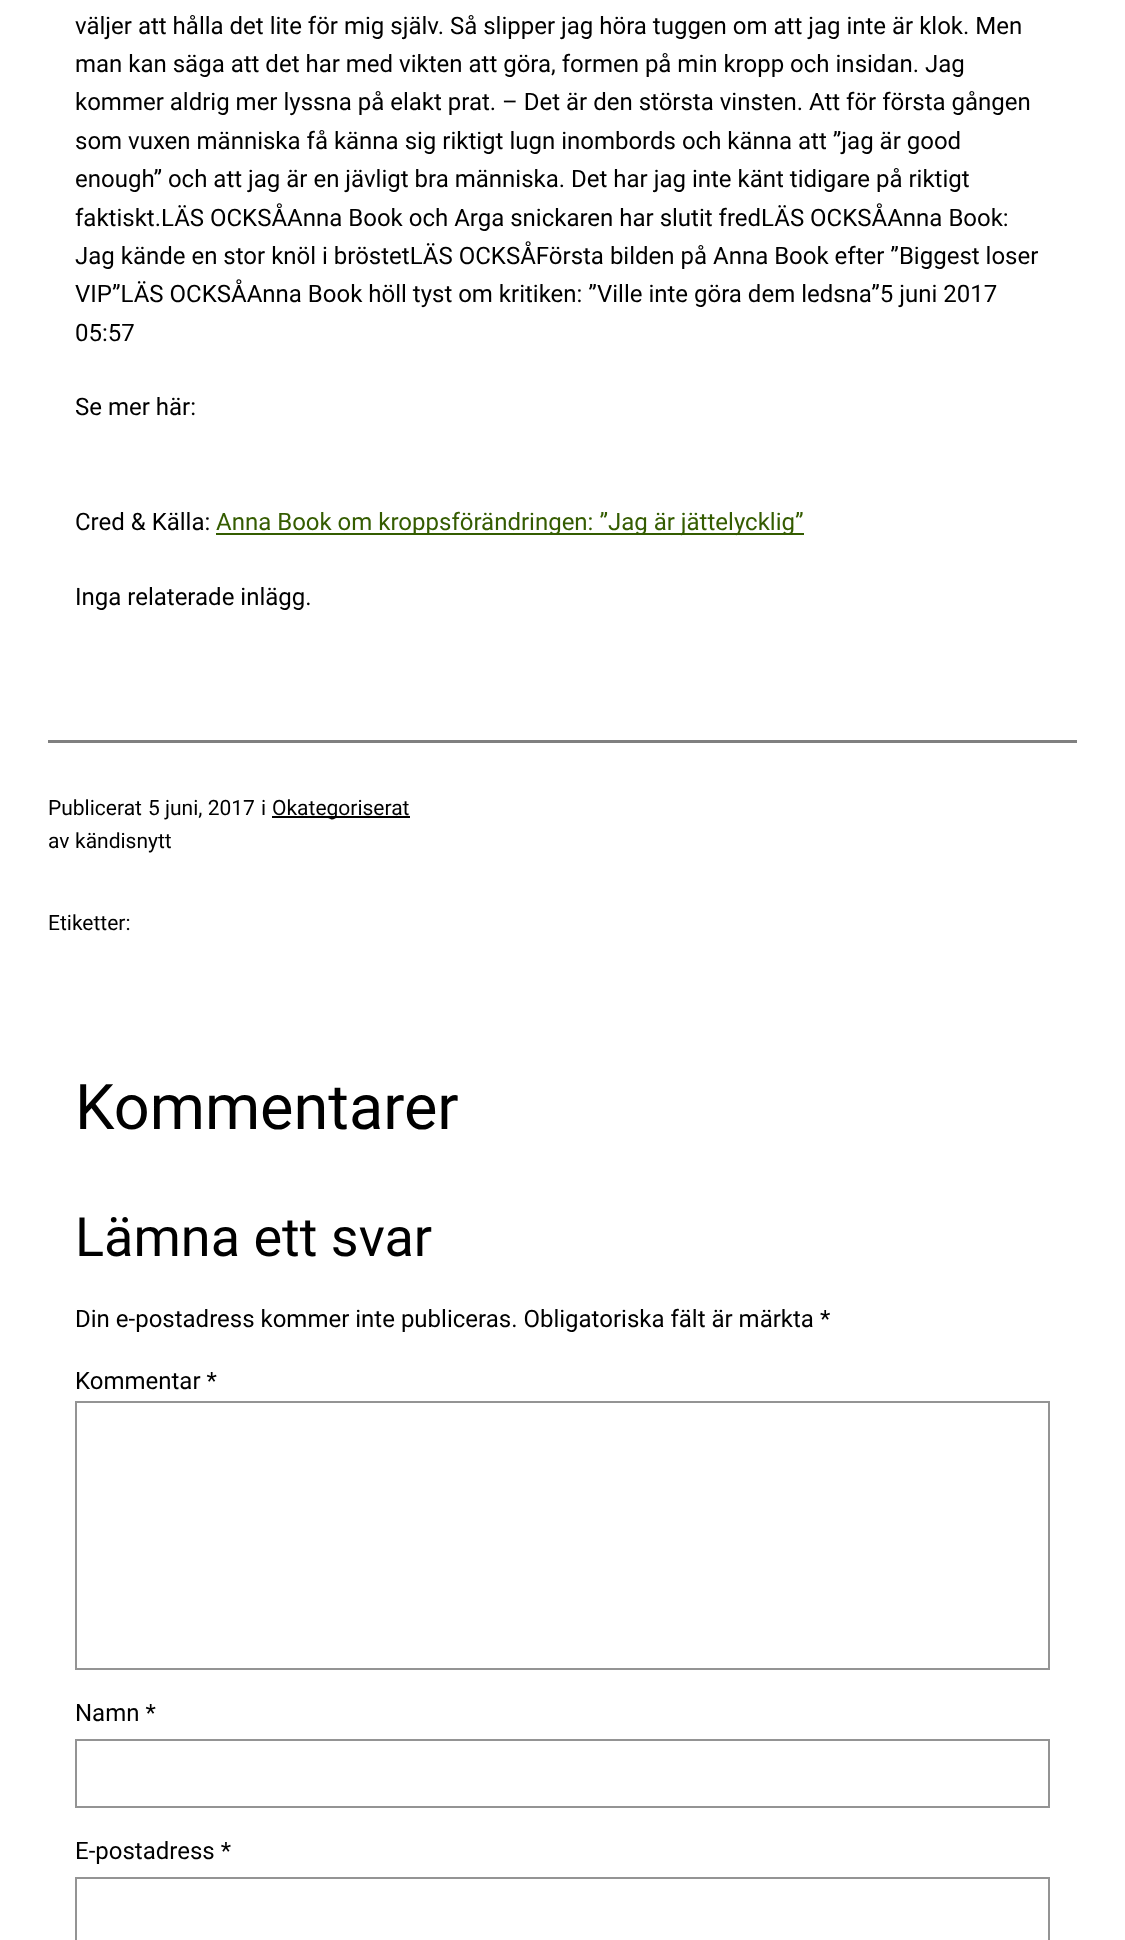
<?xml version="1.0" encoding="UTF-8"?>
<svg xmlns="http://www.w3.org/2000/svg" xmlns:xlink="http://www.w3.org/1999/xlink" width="1125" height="1940">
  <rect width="100%" height="100%" fill="#ffffff" />
  <rect x="216" y="533" width="588" height="2" fill="#345c00" />
  <rect x="48" y="740" width="1029" height="3" fill="#808080" />
  <rect x="272" y="816" width="138" height="2" fill="#000000" />
  <rect x="76" y="1402" width="973" height="267" fill="none" stroke="#949494" stroke-width="2" />
  <rect x="76" y="1740" width="973" height="67" fill="none" stroke="#949494" stroke-width="2" />
  <rect x="76" y="1878" width="973" height="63" fill="none" stroke="#949494" stroke-width="2" />
  <text x="75" y="34" style="font-family: Roboto; font-size: 24px; fill: #000000">väljer att hålla det lite för mig själv. Så slipper jag höra tuggen om att jag inte är klok. Men</text>
  <text x="75" y="72" style="font-family: Roboto; font-size: 24px; fill: #000000">man kan säga att det har med vikten att göra, formen på min kropp och insidan. Jag</text>
  <text x="75" y="110" style="font-family: Roboto; font-size: 24px; fill: #000000">kommer aldrig mer lyssna på elakt prat. – Det är den största vinsten. Att för första gången</text>
  <text x="75" y="149" style="font-family: Roboto; font-size: 24px; fill: #000000">som vuxen människa få känna sig riktigt lugn inombords och känna att ”jag är good</text>
  <text x="75" y="187" style="font-family: Roboto; font-size: 24px; fill: #000000">enough” och att jag är en jävligt bra människa. Det har jag inte känt tidigare på riktigt</text>
  <text x="75" y="226" style="font-family: Roboto; font-size: 24px; fill: #000000">faktiskt.LÄS OCKSÅAnna Book och Arga snickaren har slutit fredLÄS OCKSÅAnna Book:</text>
  <text x="75" y="264" style="font-family: Roboto; font-size: 24px; fill: #000000">Jag kände en stor knöl i bröstetLÄS OCKSÅFörsta bilden på Anna Book efter ”Biggest loser</text>
  <text x="75" y="302" style="font-family: Roboto; font-size: 24px; fill: #000000">VIP”LÄS OCKSÅAnna Book höll tyst om kritiken: ”Ville inte göra dem ledsna”5 juni 2017</text>
  <text x="75" y="341" style="font-family: Roboto; font-size: 24px; fill: #000000">05:57</text>
  <text x="75" y="415" style="font-family: Roboto; font-size: 24px; fill: #000000">Se mer här:</text>
  <text x="75" y="530" style="font-family: Roboto; font-size: 24px; fill: #000000">Cred &amp; Källa:</text>
  <text x="216" y="530" style="font-family: Roboto; font-size: 24px; fill: #345c00">Anna Book om kroppsförändringen: ”Jag är jättelycklig”</text>
  <text x="75" y="605" style="font-family: Roboto; font-size: 24px; fill: #000000">Inga relaterade inlägg.</text>
  <text x="48" y="815" style="font-family: Roboto; font-size: 21px; fill: #000000">Publicerat</text>
  <text x="148" y="815" style="font-family: Roboto; font-size: 21px; fill: #000000">5 juni, 2017</text>
  <text x="261" y="815" style="font-family: Roboto; font-size: 21px; fill: #000000">i</text>
  <text x="272" y="815" style="font-family: Roboto; font-size: 21px; fill: #000000">Okategoriserat</text>
  <text x="48" y="848" style="font-family: Roboto; font-size: 21px; fill: #000000">av</text>
  <text x="75" y="848" style="font-family: Roboto; font-size: 21px; fill: #000000">kändisnytt</text>
  <text x="48" y="930" style="font-family: Roboto; font-size: 21px; fill: #000000">Etiketter:</text>
  <text x="75" y="1129" style="font-family: Roboto; font-size: 63px; fill: #000000">Kommentarer</text>
  <text x="75" y="1256" style="font-family: Roboto; font-size: 54px; fill: #000000">Lämna ett svar</text>
  <text x="75" y="1327" style="font-family: Roboto; font-size: 24px; fill: #000000">Din e-postadress kommer inte publiceras. Obligatoriska fält är märkta *</text>
  <text x="75" y="1389" style="font-family: Roboto; font-size: 24px; fill: #000000">Kommentar *</text>
  <text x="75" y="1721" style="font-family: Roboto; font-size: 24px; fill: #000000">Namn *</text>
  <text x="75" y="1859" style="font-family: Roboto; font-size: 24px; fill: #000000">E-postadress *</text>
</svg>
